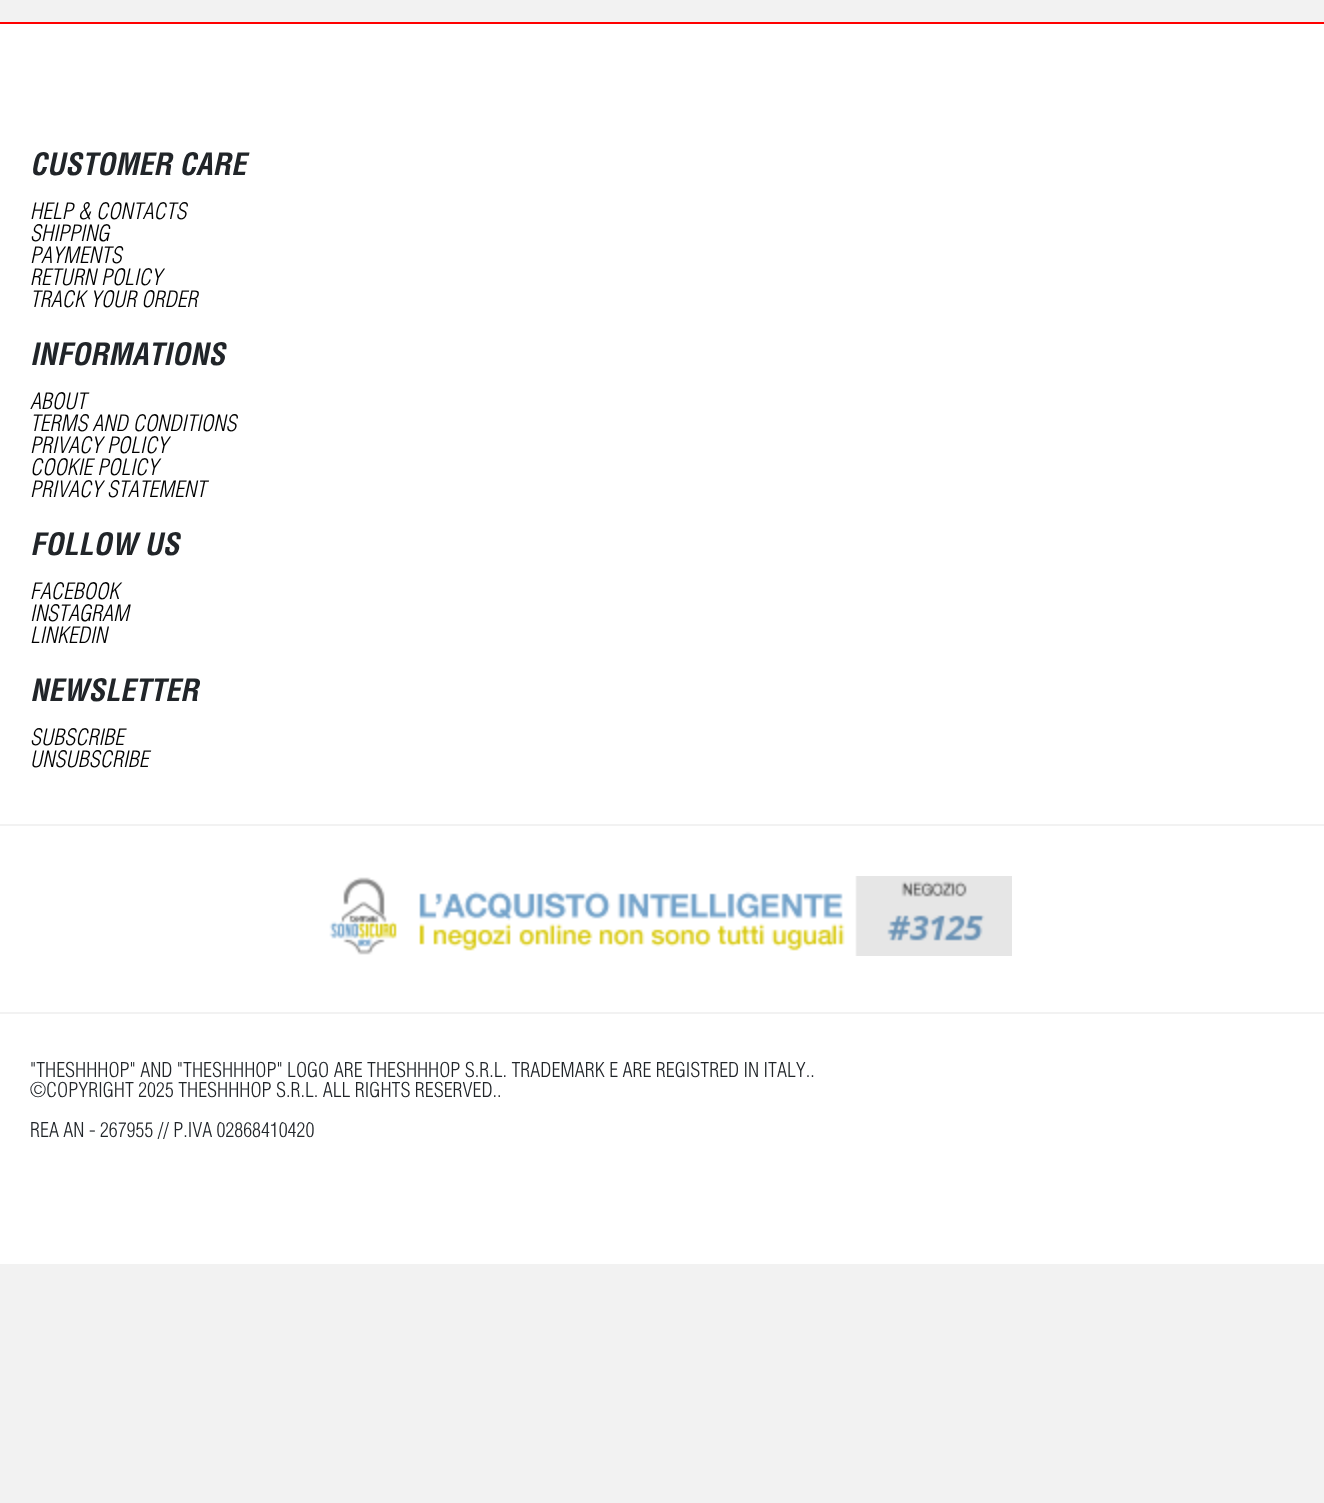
<?xml version="1.0" encoding="UTF-8"?>
<svg xmlns="http://www.w3.org/2000/svg" xmlns:xlink="http://www.w3.org/1999/xlink" width="1324" height="1503">
  <rect width="100%" height="100%" fill="#f2f2f2" />
  <rect y="24" width="1324" height="1240" fill="#ffffff" />
  <rect y="22" width="1324" height="2" fill="#ff0000" />
  <rect y="824" width="1324" height="2" fill="#f2f2f2" />
  <image x="329" y="876" width="683" height="80" xlink:href="image1.png" />
  <rect y="1012" width="1324" height="2" fill="#f2f2f2" />
  <text x="30" y="175" style="font-family: Helvetica; font-size: 30px; font-weight: bold; font-style: italic; fill: #212529">CUSTOMER CARE</text>
  <text x="30" y="219" style="font-family: Helvetica; font-size: 22px; font-weight: 300; font-style: italic; fill: #000000">HELP &amp; CONTACTS</text>
  <text x="30" y="241" style="font-family: Helvetica; font-size: 22px; font-weight: 300; font-style: italic; fill: #000000">SHIPPING</text>
  <text x="30" y="263" style="font-family: Helvetica; font-size: 22px; font-weight: 300; font-style: italic; fill: #000000">PAYMENTS</text>
  <text x="30" y="285" style="font-family: Helvetica; font-size: 22px; font-weight: 300; font-style: italic; fill: #000000">RETURN POLICY</text>
  <text x="30" y="307" style="font-family: Helvetica; font-size: 22px; font-weight: 300; font-style: italic; fill: #000000">TRACK YOUR ORDER</text>
  <text x="30" y="365" style="font-family: Helvetica; font-size: 30px; font-weight: bold; font-style: italic; fill: #212529">INFORMATIONS</text>
  <text x="30" y="409" style="font-family: Helvetica; font-size: 22px; font-weight: 300; font-style: italic; fill: #000000">ABOUT</text>
  <text x="30" y="431" style="font-family: Helvetica; font-size: 22px; font-weight: 300; font-style: italic; fill: #000000">TERMS AND CONDITIONS</text>
  <text x="30" y="453" style="font-family: Helvetica; font-size: 22px; font-weight: 300; font-style: italic; fill: #000000">PRIVACY POLICY</text>
  <text x="30" y="475" style="font-family: Helvetica; font-size: 22px; font-weight: 300; font-style: italic; fill: #000000">COOKIE POLICY</text>
  <text x="30" y="497" style="font-family: Helvetica; font-size: 22px; font-weight: 300; font-style: italic; fill: #000000">PRIVACY STATEMENT</text>
  <text x="30" y="555" style="font-family: Helvetica; font-size: 30px; font-weight: bold; font-style: italic; fill: #212529">FOLLOW US</text>
  <text x="30" y="599" style="font-family: Helvetica; font-size: 22px; font-weight: 300; font-style: italic; fill: #000000">FACEBOOK</text>
  <text x="30" y="621" style="font-family: Helvetica; font-size: 22px; font-weight: 300; font-style: italic; fill: #000000">INSTAGRAM</text>
  <text x="30" y="643" style="font-family: Helvetica; font-size: 22px; font-weight: 300; font-style: italic; fill: #000000">LINKEDIN</text>
  <text x="30" y="701" style="font-family: Helvetica; font-size: 30px; font-weight: bold; font-style: italic; fill: #212529">NEWSLETTER</text>
  <text x="30" y="745" style="font-family: Helvetica; font-size: 22px; font-weight: 300; font-style: italic; fill: #000000">SUBSCRIBE</text>
  <text x="30" y="767" style="font-family: Helvetica; font-size: 22px; font-weight: 300; font-style: italic; fill: #000000">UNSUBSCRIBE</text>
  <text x="30" y="1077" style="font-family: Helvetica; font-size: 20px; font-weight: 300; fill: #212529">"THESHHHOP" AND "THESHHHOP" LOGO ARE THESHHHOP S.R.L. TRADEMARK E ARE REGISTRED IN ITALY..</text>
  <text x="30" y="1097" style="font-family: Helvetica; font-size: 20px; font-weight: 300; fill: #212529">©COPYRIGHT 2025 THESHHHOP S.R.L. ALL RIGHTS RESERVED..</text>
  <text x="30" y="1137" style="font-family: Helvetica; font-size: 20px; font-weight: 300; fill: #212529">REA AN - 267955 // P.IVA 02868410420</text>
</svg>
